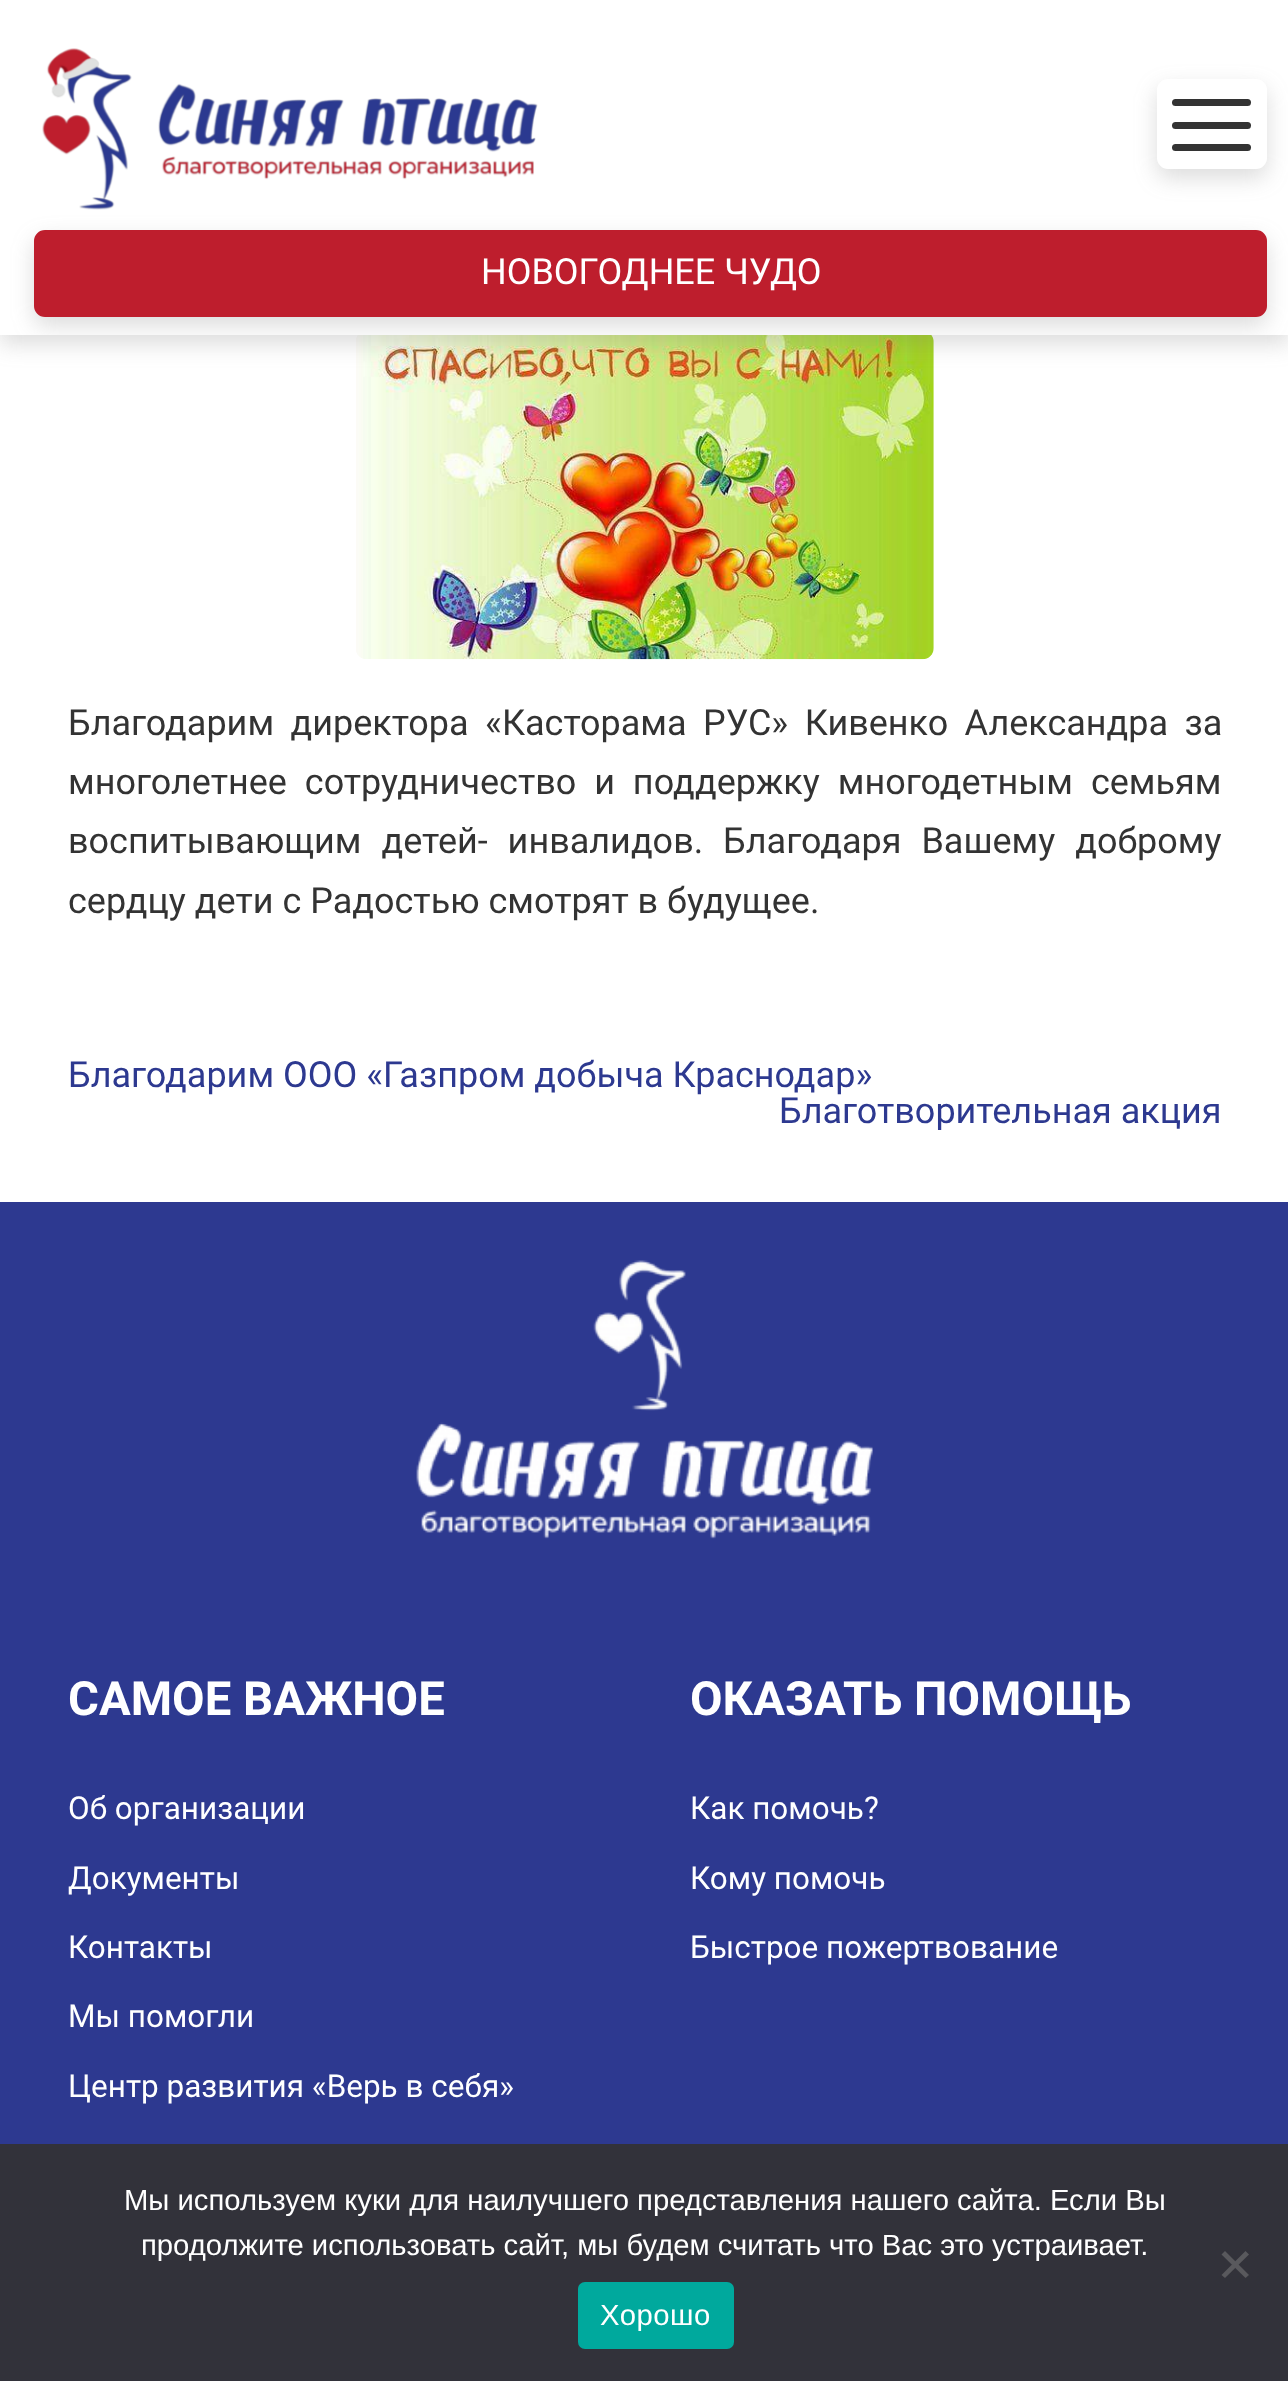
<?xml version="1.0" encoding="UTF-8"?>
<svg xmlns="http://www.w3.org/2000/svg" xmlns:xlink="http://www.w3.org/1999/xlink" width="1288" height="2381">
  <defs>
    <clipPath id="clip1"><rect x="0" y="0" width="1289" height="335" /></clipPath>
    <clipPath id="clip2"><rect x="68" y="1058" width="1154" height="72" /></clipPath>
  </defs>
  <rect width="100%" height="100%" fill="#ffffff" />
  <image x="356" y="335" width="578" height="325" xlink:href="image2.png" />
  <rect y="9" width="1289" height="335" fill="#757575" fill-opacity="0.25" filter="blur(11px)" />
  <rect width="1288" height="335" fill="#ffffff" />
  <rect x="1157" y="88" width="110" height="90" rx="11" fill="#757575" fill-opacity="0.25" filter="blur(11px)" />
  <rect x="1157" y="79" width="110" height="90" rx="11" fill="#ffffff" />
  <rect x="1172" y="122" width="79" height="7" rx="3.5" fill="#333333" />
  <rect x="1172" y="99" width="79" height="7" rx="3.5" fill="#333333" />
  <rect x="1172" y="144" width="79" height="7" rx="3.5" fill="#333333" />
  <g clip-path="url(#clip1)">
    <rect x="34" y="239" width="1233" height="87" rx="11" fill="#757575" fill-opacity="0.25" filter="blur(11px)" />
  </g>
  <image x="42" y="48" width="496" height="162" xlink:href="image1.png" />
  <rect x="36.5" y="232.5" width="1228" height="82" rx="8.5" fill="#be1e2d" stroke="#be1e2d" stroke-width="5" />
  <rect y="1202" width="1288" height="942" fill="#2d3990" />
  <image x="416" y="1260" width="457" height="279" xlink:href="image3.png" />
  <rect y="2144" width="1288" height="237" fill="#32323a" />
  <path d="M 1245.5 2251 l 3.5 3.5 l -24 23.5 l -3.5 -3 z" fill="#59595d" />
  <path d="M 1221.5 2254.5 l 3.5 -3.5 l 24 24 l -3.5 3 z" fill="#59595d" />
  <rect x="578" y="2282" width="156" height="67" rx="7" fill="#00a99d" />
  <text x="481" y="284" style="font-family: Roboto; font-size: 36px; fill: #ffffff">НОВОГОДНЕЕ ЧУДО</text>
  <text x="68" y="735" word-spacing="7.5" style="font-family: Roboto; font-size: 36px; fill: #333333">Благодарим директора «Касторама РУС» Кивенко Александра за</text>
  <text x="68" y="794" word-spacing="9" style="font-family: Roboto; font-size: 36px; fill: #333333">многолетнее сотрудничество и поддержку многодетным семьям</text>
  <text x="68" y="853" word-spacing="11" style="font-family: Roboto; font-size: 36px; fill: #333333">воспитывающим детей- инвалидов. Благодаря Вашему доброму</text>
  <text x="68" y="913" style="font-family: Roboto; font-size: 36px; fill: #333333">сердцу дети с Радостью смотрят в будущее.</text>
  <text x="68" y="1087" style="font-family: Roboto; font-size: 36px; fill: #2d3990">Благодарим ООО «Газпром добыча Краснодар»</text>
  <g clip-path="url(#clip2)">
    <text x="779" y="1123" style="font-family: Roboto; font-size: 36px; fill: #2d3990">Благотворительная акция</text>
  </g>
  <text x="68" y="1715" style="font-family: Roboto; font-size: 47.25px; font-weight: bold; fill: #ffffff">САМОЕ ВАЖНОЕ</text>
  <text x="68" y="1819" style="font-family: Roboto; font-size: 31.5px; fill: #ffffff">Об организации</text>
  <text x="68" y="1889" style="font-family: Roboto; font-size: 31.5px; fill: #ffffff">Документы</text>
  <text x="68" y="1958" style="font-family: Roboto; font-size: 31.5px; fill: #ffffff">Контакты</text>
  <text x="68" y="2027" style="font-family: Roboto; font-size: 31.5px; fill: #ffffff">Мы помогли</text>
  <text x="68" y="2097" style="font-family: Roboto; font-size: 31.5px; fill: #ffffff">Центр развития «Верь в себя»</text>
  <text x="690" y="1715" style="font-family: Roboto; font-size: 47.25px; font-weight: bold; fill: #ffffff">ОКАЗАТЬ ПОМОЩЬ</text>
  <text x="690" y="1819" style="font-family: Roboto; font-size: 31.5px; fill: #ffffff">Как помочь?</text>
  <text x="690" y="1889" style="font-family: Roboto; font-size: 31.5px; fill: #ffffff">Кому помочь</text>
  <text x="690" y="1958" style="font-family: Roboto; font-size: 31.5px; fill: #ffffff">Быстрое пожертвование</text>
  <text x="124" y="2210" style="font-family: Liberation Sans; font-size: 29.25px; fill: #ffffff">Мы используем куки для наилучшего представления нашего сайта. Если Вы</text>
  <text x="141" y="2255" style="font-family: Liberation Sans; font-size: 29.25px; fill: #ffffff">продолжите использовать сайт, мы будем считать что Вас это устраивает.</text>
  <text x="600" y="2325" style="font-family: Liberation Sans; font-size: 29.25px; letter-spacing: 0.5px; fill: #ffffff">Хорошо</text>
</svg>
